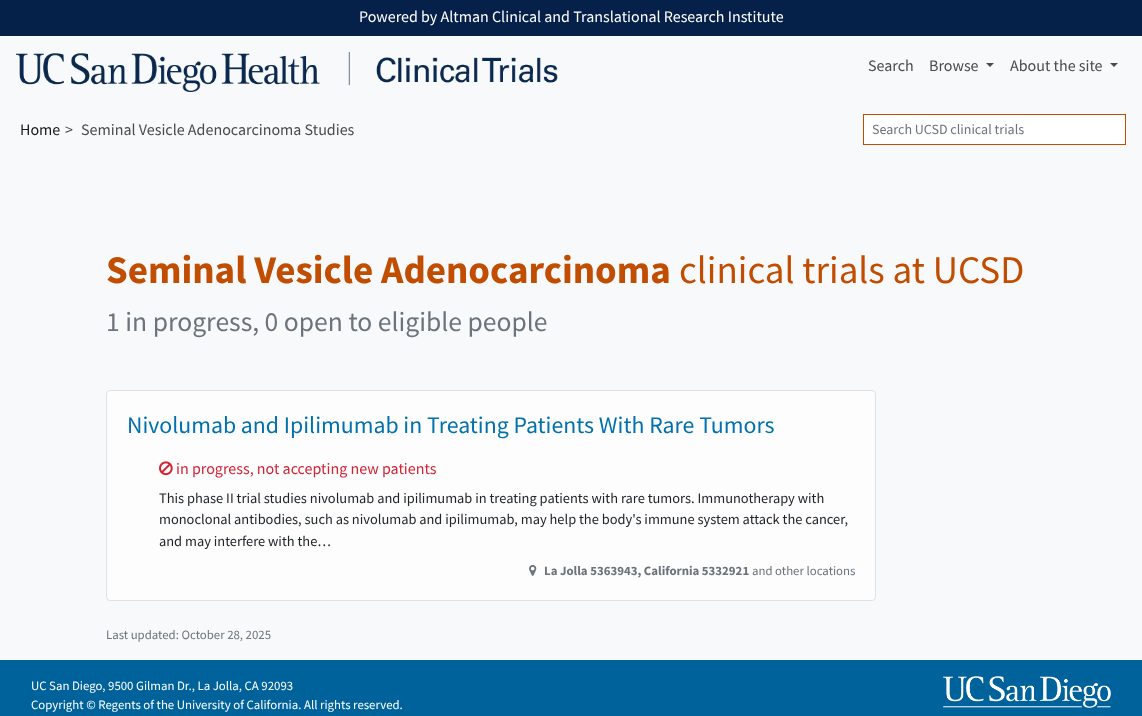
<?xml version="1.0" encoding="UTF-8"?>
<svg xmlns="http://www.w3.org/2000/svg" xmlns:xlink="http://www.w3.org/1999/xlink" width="1142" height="716">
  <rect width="100%" height="100%" fill="#f8f9fa" />
  <rect width="1142" height="36" fill="#052049" />
  <image x="16" y="52" width="542" height="40" xlink:href="image1.png" />
  <path d="M 986 63 h 8 l -4 4 z" fill="#4a4b4b" />
  <path d="M 1110 63 h 8 l -4 4 z" fill="#4a4b4b" />
  <rect x="863.5" y="114.5" width="262" height="30" fill="#ffffff" stroke="#c14d00" />
  <rect x="106.5" y="390.5" width="769" height="210" rx="3.5" fill="#fdfdfd" stroke="#dee2e6" />
  <image x="159" y="461" width="14" height="15" xlink:href="image2.png" />
  <image x="529" y="565" width="8" height="11" xlink:href="image3.png" />
  <rect y="660" width="1142" height="56" fill="#00629b" />
  <image x="943" y="676" width="168" height="32" xlink:href="image4.png" />
  <text x="359" y="22" style="font-family: Source Sans Pro; font-size: 16px; fill: #ffffff">Powered by Altman Clinical and Translational Research Institute</text>
  <text x="868" y="71" style="font-family: Source Sans Pro; font-size: 16px; fill: #4a4b4b">Search</text>
  <text x="929" y="71" style="font-family: Source Sans Pro; font-size: 16px; fill: #4a4b4b">Browse</text>
  <text x="1010" y="71" style="font-family: Source Sans Pro; font-size: 16px; fill: #4a4b4b">About the site</text>
  <text x="20" y="135" style="font-family: Source Sans Pro; font-size: 16px; fill: #191919">Home</text>
  <text x="65" y="135" style="font-family: Source Sans Pro; font-size: 16px; fill: #4a4b4b">&gt;</text>
  <text x="81" y="135" style="font-family: Source Sans Pro; font-size: 16px; fill: #4a4b4b">Seminal Vesicle Adenocarcinoma Studies</text>
  <text x="872" y="134" style="font-family: Source Sans Pro; font-size: 14px; fill: #6b747c">Search UCSD clinical trials</text>
  <text x="106" y="283" style="font-family: Source Sans Pro; font-size: 39.1px; font-weight: bold; fill: #c14d00">Seminal Vesicle Adenocarcinoma</text>
  <text x="679" y="283" style="font-family: Source Sans Pro; font-size: 39.1px; fill: #c14d00">clinical trials at UCSD</text>
  <text x="106" y="331" style="font-family: Source Sans Pro; font-size: 27.6px; fill: #6b747c">1 in progress, 0 open to eligible people</text>
  <text x="127" y="433" style="font-family: Source Sans Pro; font-size: 23.8px; fill: #0071ad">Nivolumab and Ipilimumab in Treating Patients With Rare Tumors</text>
  <text x="176" y="474" style="font-family: Source Sans Pro; font-size: 16px; fill: #d12435">in progress, not accepting new patients</text>
  <text x="159" y="503" style="font-family: Source Sans Pro; font-size: 14.4px; fill: #212529">This phase II trial studies nivolumab and ipilimumab in treating patients with rare tumors. Immunotherapy with</text>
  <text x="159" y="524" style="font-family: Source Sans Pro; font-size: 14.4px; fill: #212529">monoclonal antibodies, such as nivolumab and ipilimumab, may help the body's immune system attack the cancer,</text>
  <text x="159" y="546" style="font-family: Source Sans Pro; font-size: 14.4px; fill: #212529">and may interfere with the…</text>
  <text x="544" y="575" style="font-family: Source Sans Pro; font-size: 12.8px; font-weight: bold; fill: #6b747c">La Jolla 5363943, California 5332921</text>
  <text x="752" y="575" style="font-family: Source Sans Pro; font-size: 12.8px; fill: #6b747c">and other locations</text>
  <text x="106" y="639" style="font-family: Source Sans Pro; font-size: 12.8px; fill: #6b747c">Last updated: October 28, 2025</text>
  <text x="31" y="690" style="font-family: Source Sans Pro; font-size: 12.8px; fill: #ffffff">UC San Diego, 9500 Gilman Dr., La Jolla, CA 92093</text>
  <text x="31" y="709" style="font-family: Source Sans Pro; font-size: 12.8px; fill: #ffffff">Copyright © Regents of the University of California. All rights reserved.</text>
</svg>
